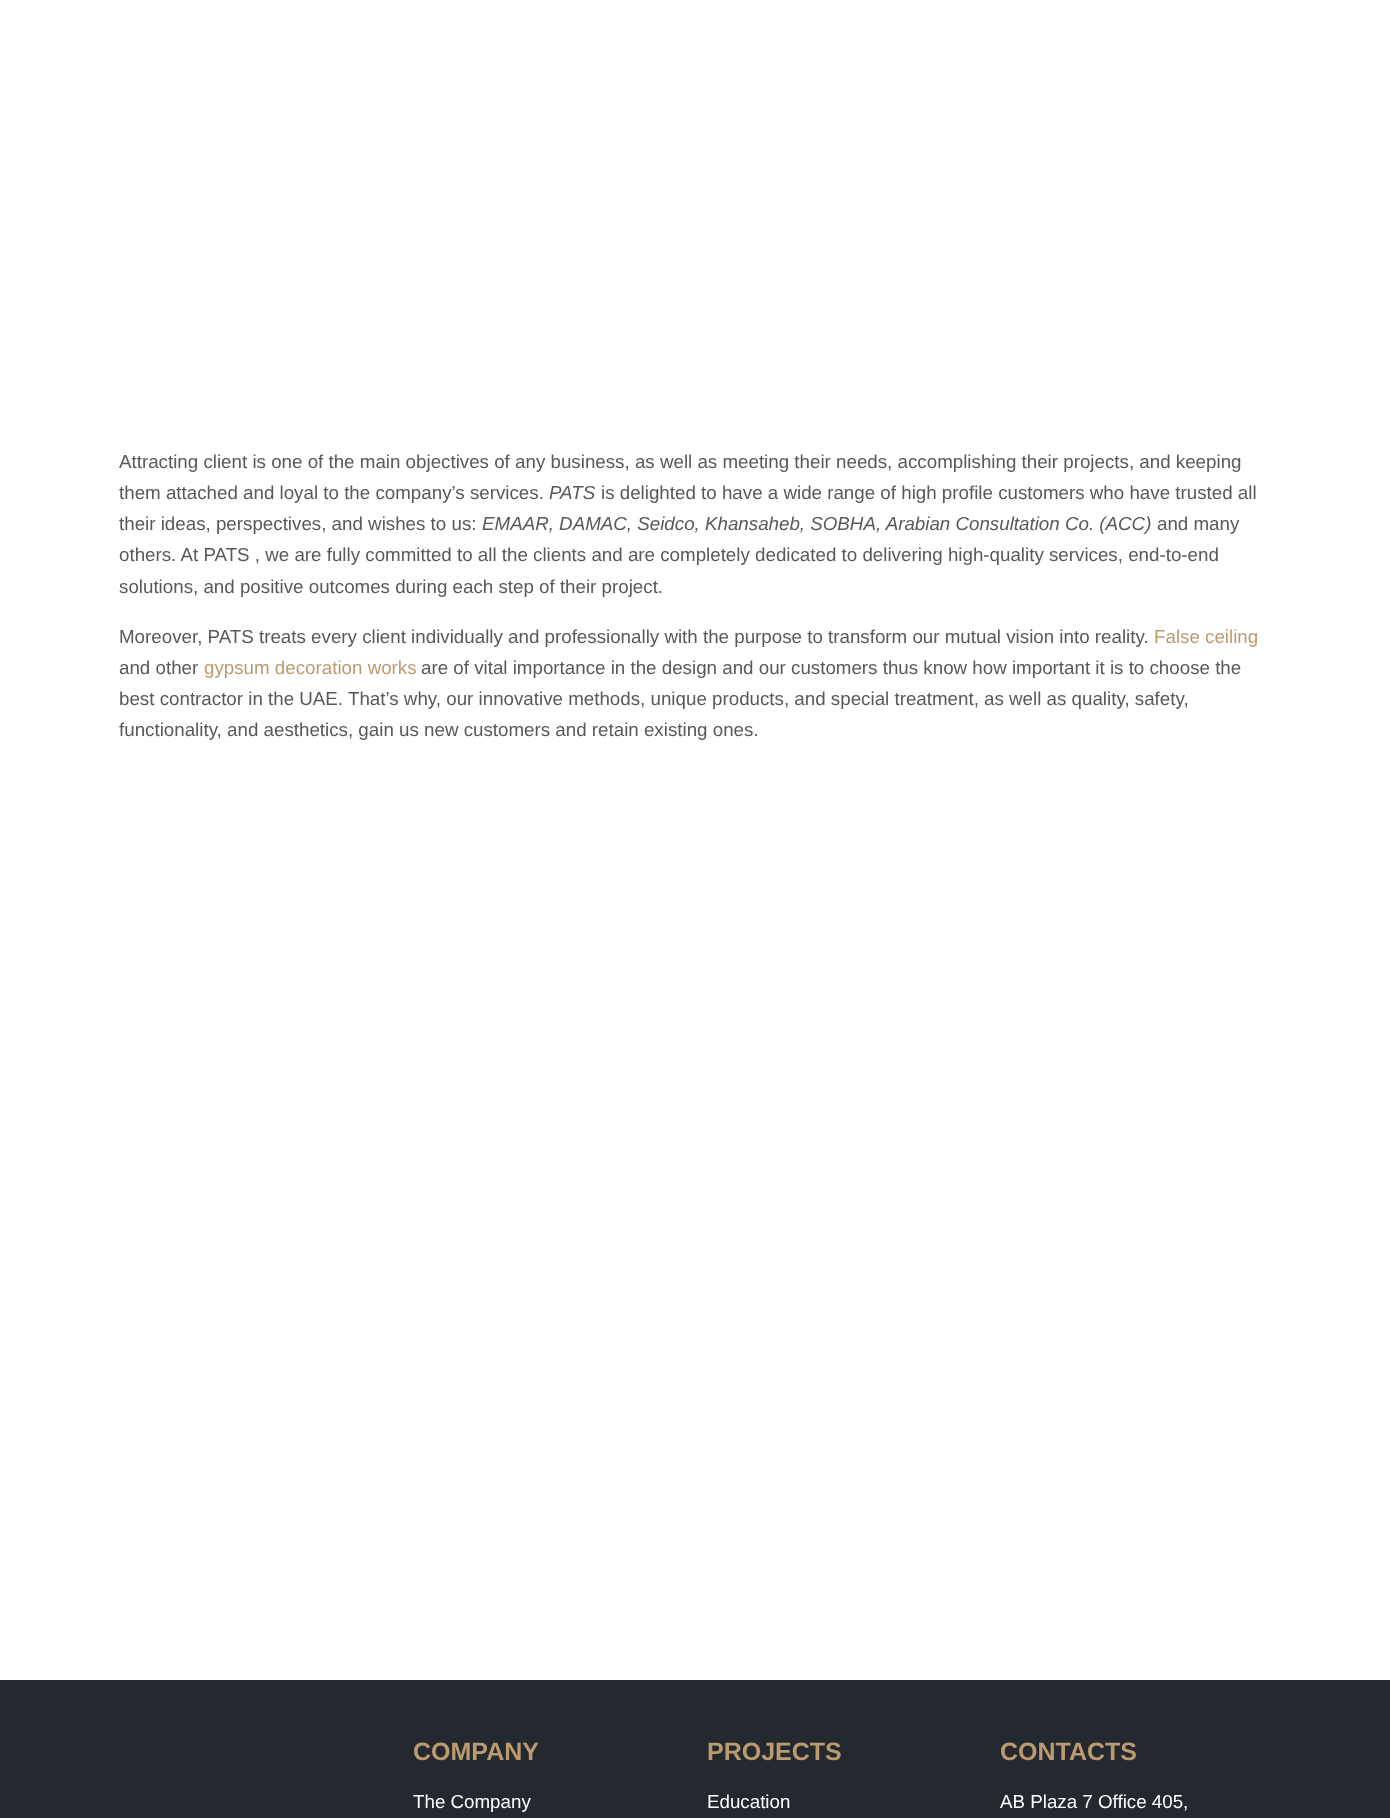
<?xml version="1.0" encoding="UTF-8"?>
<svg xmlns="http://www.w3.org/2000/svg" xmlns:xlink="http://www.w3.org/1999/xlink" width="1390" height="1818">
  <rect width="100%" height="100%" fill="#ffffff" />
  <rect y="1680" width="1390" height="138" fill="#23292e" />
  <text x="119" y="468" style="font-family: Liberation Sans; font-size: 18.75px; fill: #58595b">Attracting client is one of the main objectives of any business, as well as meeting their needs, accomplishing their projects, and keeping</text>
  <text x="119" y="499" style="font-family: Liberation Sans; font-size: 18.75px; fill: #58595b">them attached and loyal to the company’s services.</text>
  <text x="549" y="499" style="font-family: Liberation Sans; font-size: 18.75px; font-style: italic; fill: #58595b">PATS</text>
  <text x="601" y="499" style="font-family: Liberation Sans; font-size: 18.75px; fill: #58595b">is delighted to have a wide range of high profile customers who have trusted all</text>
  <text x="119" y="530" style="font-family: Liberation Sans; font-size: 18.75px; fill: #58595b">their ideas, perspectives, and wishes to us:</text>
  <text x="482" y="530" style="font-family: Liberation Sans; font-size: 18.75px; font-style: italic; fill: #58595b">EMAAR, DAMAC, Seidco, Khansaheb, SOBHA, Arabian Consultation Co. (ACC)</text>
  <text x="1157" y="530" style="font-family: Liberation Sans; font-size: 18.75px; fill: #58595b">and many</text>
  <text x="119" y="561" style="font-family: Liberation Sans; font-size: 18.75px; fill: #58595b">others. At PATS , we are fully committed to all the clients and are completely dedicated to delivering high-quality services, end-to-end</text>
  <text x="119" y="593" style="font-family: Liberation Sans; font-size: 18.75px; fill: #58595b">solutions, and positive outcomes during each step of their project.</text>
  <text x="119" y="643" style="font-family: Liberation Sans; font-size: 18.75px; fill: #58595b">Moreover, PATS treats every client individually and professionally with the purpose to transform our mutual vision into reality.</text>
  <text x="1154" y="643" style="font-family: Liberation Sans; font-size: 18.75px; fill: #bc9a6f">False ceiling</text>
  <text x="119" y="674" style="font-family: Liberation Sans; font-size: 18.75px; fill: #58595b">and other</text>
  <text x="204" y="674" style="font-family: Liberation Sans; font-size: 18.75px; fill: #bc9a6f">gypsum decoration works</text>
  <text x="421" y="674" style="font-family: Liberation Sans; font-size: 18.75px; fill: #58595b">are of vital importance in the design and our customers thus know how important it is to choose the</text>
  <text x="119" y="705" style="font-family: Liberation Sans; font-size: 18.75px; fill: #58595b">best contractor in the UAE. That’s why, our innovative methods, unique products, and special treatment, as well as quality, safety,</text>
  <text x="119" y="736" style="font-family: Liberation Sans; font-size: 18.75px; fill: #58595b">functionality, and aesthetics, gain us new customers and retain existing ones.</text>
  <text x="413" y="1760" style="font-family: Liberation Sans; font-size: 25px; font-weight: bold; fill: #bc9a6f">COMPANY</text>
  <text x="413" y="1808" style="font-family: Liberation Sans; font-size: 18.75px; fill: #ffffff">The Company</text>
  <text x="707" y="1760" style="font-family: Liberation Sans; font-size: 25px; font-weight: bold; fill: #bc9a6f">PROJECTS</text>
  <text x="707" y="1808" style="font-family: Liberation Sans; font-size: 18.75px; fill: #ffffff">Education</text>
  <text x="1000" y="1760" style="font-family: Liberation Sans; font-size: 25px; font-weight: bold; fill: #bc9a6f">CONTACTS</text>
  <text x="1000" y="1808" style="font-family: Liberation Sans; font-size: 18.75px; fill: #ffffff">AB Plaza 7 Office 405,</text>
</svg>
